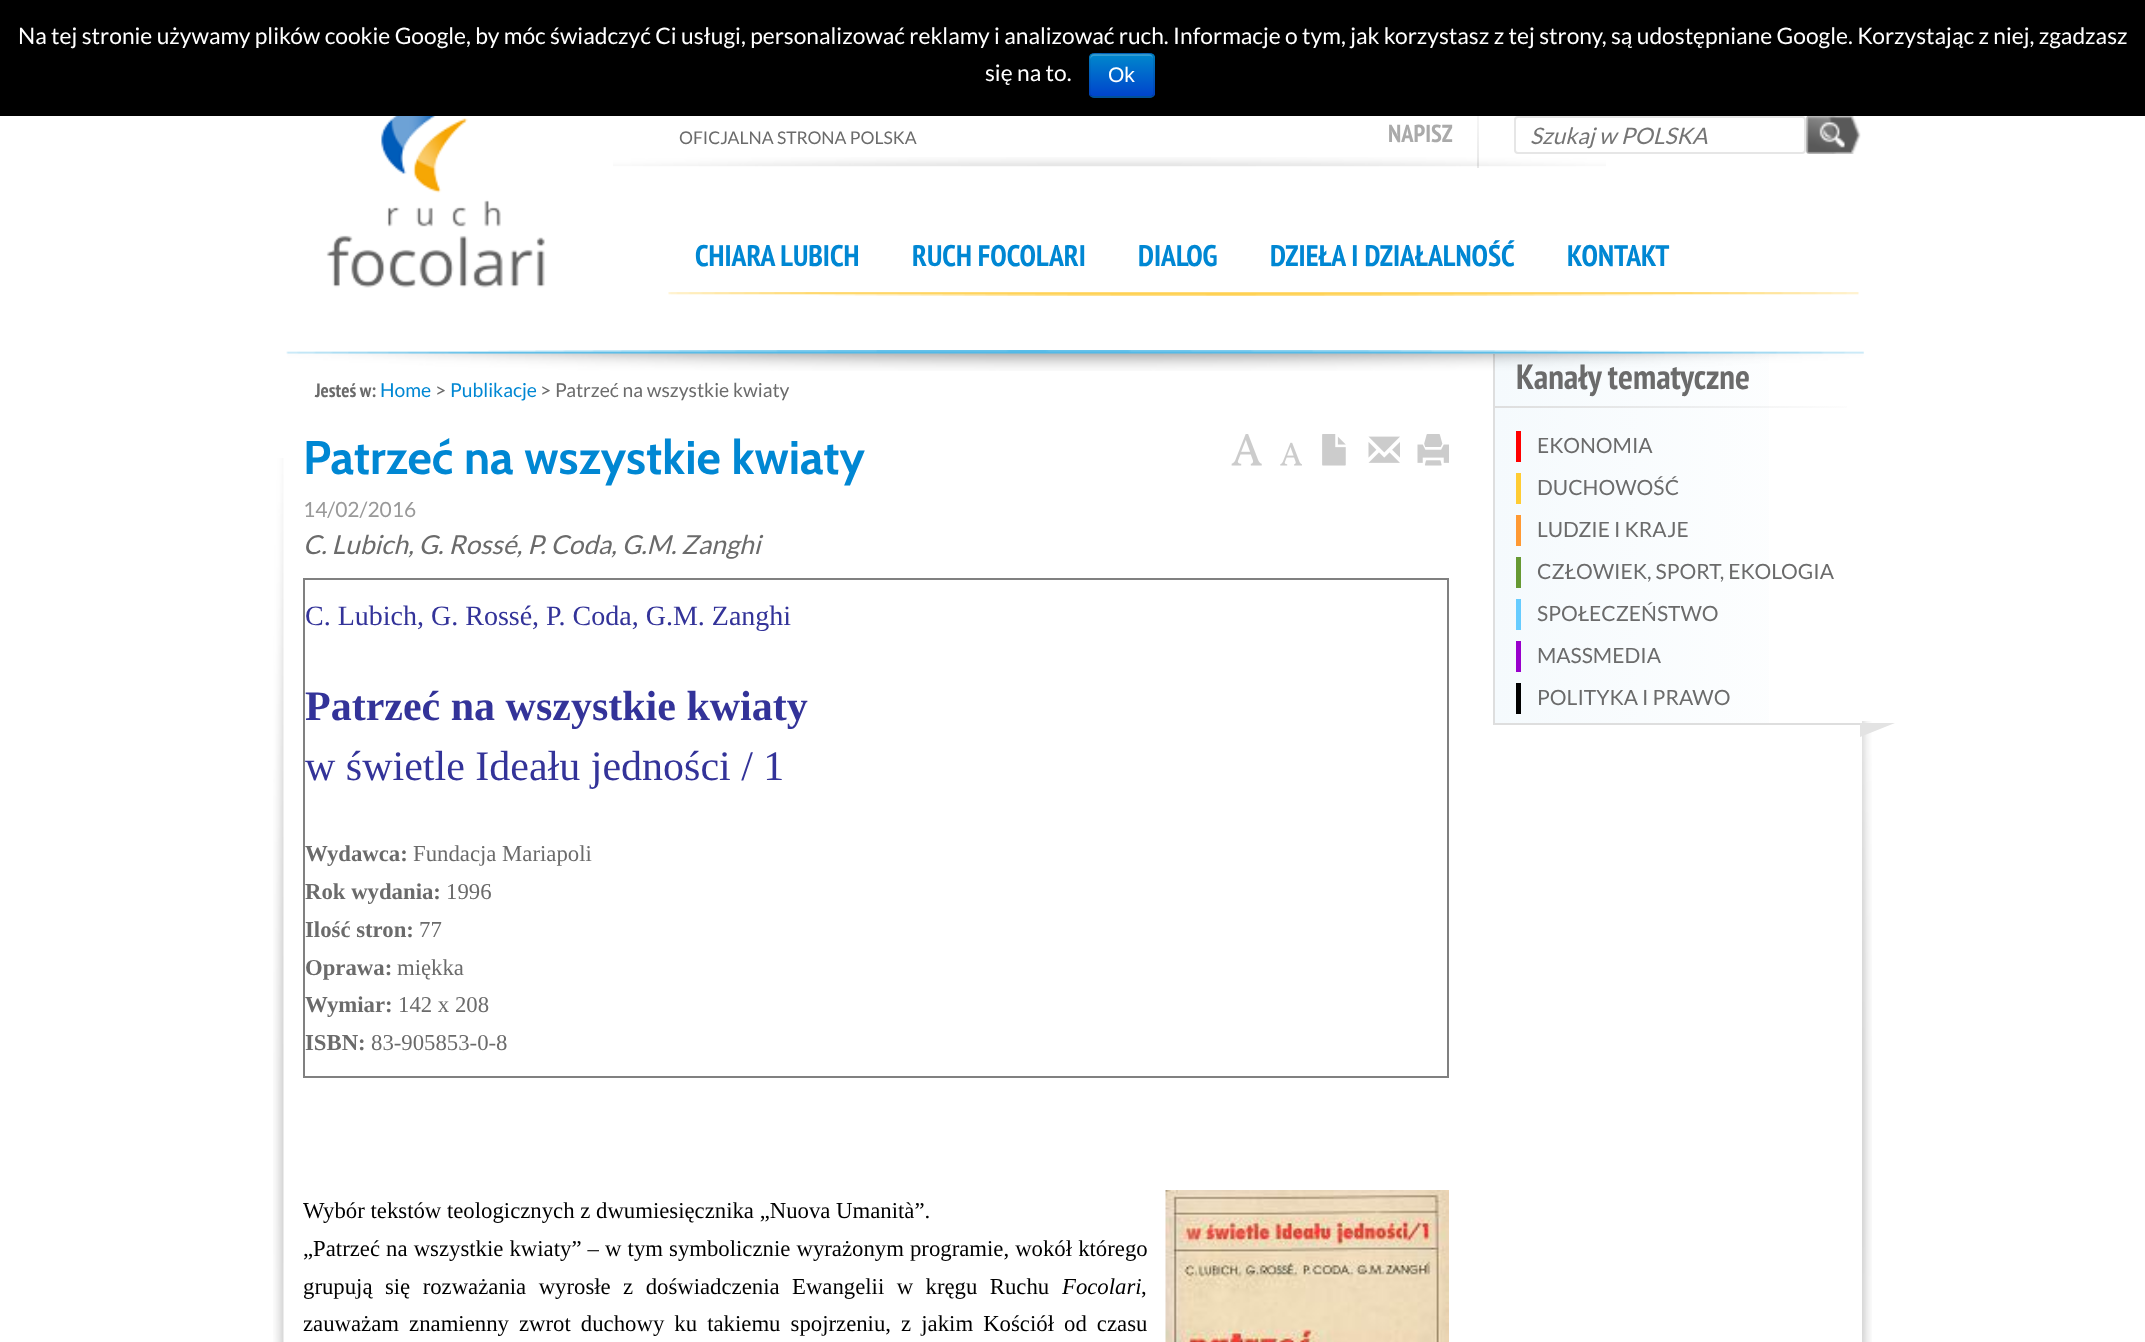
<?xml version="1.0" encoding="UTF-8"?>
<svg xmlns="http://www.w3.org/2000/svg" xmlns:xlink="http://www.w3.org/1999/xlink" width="2145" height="1342">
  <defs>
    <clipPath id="clip1"><rect x="1089" y="53" width="66" height="45" rx="5" /></clipPath>
    <linearGradient id="g1" gradientUnits="userSpaceOnUse" x1="1122" y1="54" x2="1122" y2="96"><stop offset="0" stop-color="#0088cc" /><stop offset="1" stop-color="#0044cc" /></linearGradient>
    <linearGradient id="g2" gradientUnits="userSpaceOnUse" x1="1478" y1="81" x2="1478" y2="168"><stop offset="0" stop-color="#ffffff" /><stop offset="1" stop-color="#e8e8e8" /></linearGradient>
    <linearGradient id="g3" gradientUnits="userSpaceOnUse" x1="1495" y1="538" x2="1860" y2="538"><stop offset="0" stop-color="#f5fafd" /><stop offset="1" stop-color="#ffffff" /></linearGradient>
    <linearGradient id="g4" gradientUnits="userSpaceOnUse" x1="1495" y1="407" x2="1874" y2="407"><stop offset="0" stop-color="#dedede" /><stop offset="1" stop-color="#dedede" stop-opacity="0" /></linearGradient>
  </defs>
  <rect width="100%" height="100%" fill="#ffffff" />
  <rect width="2145" height="116" fill="#000000" />
  <rect x="1089" y="53" width="66" height="45" rx="5" fill="#006dcc" />
  <g clip-path="url(#clip1)">
    <rect x="1089" y="54" width="66" height="42" fill="url(#g1)" />
  </g>
  <path d="M 1094 56 h 56 c 2 0 3 2 3 4 c 0 -8 -6 -6 -13 -6 h -37 c -7 0 -13 -2 -13 6 c 0 -2 2 -4 4 -4 z" fill="#ffffff" fill-opacity="0.2" />
  <path d="M 1153 96 c -1 0.5 -2 1 -3 1 h -56 c -1.5 0 -2.5 -0.5 -3.5 -1" fill="none" stroke="#000000" stroke-opacity="0.25" stroke-width="1.8" />
  <path d="M 1090.5 96 c -0.5 -1 -1 -2 -1 -3 v -35 c 0 -1.5 0.5 -2.5 1 -3.5 c 1 -0.5 2 -1 3.5 -1 h 56 c 1 0 2 0.5 3 1 c 0.5 1 1 2 1 3.5 v 35 c 0 1 -0.5 2 -1 3" fill="none" stroke="#000000" stroke-opacity="0.1" stroke-width="1.8" />
  <image x="326" y="116" width="219" height="172" xlink:href="image1.png" />
  <rect x="1477" y="116" width="2" height="52" fill="url(#g2)" />
  <rect x="1515" y="117" width="290" height="36" rx="3" fill="none" stroke="#e6e6e6" stroke-width="2" />
  <image x="1806" y="116" width="55" height="38" xlink:href="image2.png" />
  <image x="613" y="157" width="993" height="10" xlink:href="image3.png" />
  <image x="668" y="292" width="1191" height="4" xlink:href="image4.png" />
  <image x="273" y="458" width="11" height="884" xlink:href="image5.png" />
  <image x="1231" y="434" width="31" height="32" xlink:href="image7.png" />
  <image x="1280" y="442" width="22" height="24" xlink:href="image8.png" />
  <image x="1322" y="434" width="24" height="32" xlink:href="image9.png" />
  <image x="1368" y="436" width="32" height="27" xlink:href="image10.png" />
  <image x="1417" y="434" width="32" height="32" xlink:href="image11.png" />
  <rect x="303" y="578" width="1146" height="2" fill="#808080" />
  <rect x="1447" y="578" width="2" height="500" fill="#808080" />
  <rect x="303" y="1076" width="1146" height="2" fill="#808080" />
  <rect x="303" y="578" width="2" height="500" fill="#808080" />
  <image x="1165" y="1190" width="284" height="152" xlink:href="image12.png" />
  <rect x="1495" y="354" width="274" height="369" fill="url(#g3)" />
  <rect x="1493" y="723" width="367" height="2" fill="#dedede" />
  <rect x="1493" y="354" width="2" height="371" fill="#dedede" />
  <rect x="1495" y="406" width="352" height="2" fill="url(#g4)" />
  <rect x="1516" y="431" width="5" height="31" fill="#ff0000" />
  <rect x="1516" y="473" width="5" height="31" fill="#ffcc33" />
  <rect x="1516" y="515" width="5" height="31" fill="#ff9933" />
  <rect x="1516" y="557" width="5" height="31" fill="#669933" />
  <rect x="1516" y="599" width="5" height="31" fill="#66ccff" />
  <rect x="1516" y="641" width="5" height="31" fill="#9900cc" />
  <rect x="1516" y="683" width="5" height="31" fill="#000000" />
  <image x="1862" y="721" width="10" height="621" xlink:href="image13.png" />
  <path d="M 1860 737 v -14 h 35 z" fill="#e3e3e3" />
  <text x="18" y="44" style="font-family: Lato; font-size: 22.75px; fill: #ffffff">Na tej stronie używamy plików cookie Google, by móc świadczyć Ci usługi, personalizować reklamy i analizować ruch. Informacje o tym, jak korzystasz z tej strony, są udostępniane Google. Korzystając z niej, zgadzasz</text>
  <text x="985" y="81" style="font-family: Lato; font-size: 22.75px; fill: #ffffff">się na to.</text>
  <text x="1108" y="82" style="font-family: Liberation Sans; font-size: 21px; fill: #ffffff">Ok</text>
  <text x="679" y="144" style="font-family: Lato; font-size: 17.5px; fill: #6b6b6b">OFICJALNA STRONA POLSKA</text>
  <text x="1388" y="142" style="font-family: PT Sans Narrow; font-size: 24.5px; font-weight: bold; fill: #aaaaaa">NAPISZ</text>
  <text x="1530" y="144" style="font-family: Lato; font-size: 22.75px; font-style: italic; fill: #757575">Szukaj w POLSKA</text>
  <text x="695" y="266" style="font-family: PT Sans Narrow; font-size: 29.75px; font-weight: bold; fill: #0087d3">CHIARA LUBICH</text>
  <text x="912" y="266" style="font-family: PT Sans Narrow; font-size: 29.75px; font-weight: bold; fill: #0087d3">RUCH FOCOLARI</text>
  <text x="1138" y="266" style="font-family: PT Sans Narrow; font-size: 29.75px; font-weight: bold; fill: #0087d3">DIALOG</text>
  <text x="1270" y="266" style="font-family: PT Sans Narrow; font-size: 29.75px; font-weight: bold; fill: #0087d3">DZIEŁA I DZIAŁALNOŚĆ</text>
  <text x="1567" y="266" style="font-family: PT Sans Narrow; font-size: 29.75px; font-weight: bold; fill: #0087d3">KONTAKT</text>
  <text x="315" y="397" style="font-family: PT Sans Narrow; font-size: 19.25px; font-weight: bold; fill: #6b6b6b">Jesteś w:</text>
  <text x="380" y="397" style="font-family: Lato; font-size: 19.25px; fill: #0087d3">Home</text>
  <text x="435" y="397" style="font-family: Lato; font-size: 19.25px; fill: #6b6b6b">&gt;</text>
  <text x="450" y="397" style="font-family: Lato; font-size: 19.25px; fill: #0087d3">Publikacje</text>
  <text x="540" y="397" style="font-family: Lato; font-size: 19.25px; fill: #6b6b6b">&gt; Patrzeć na wszystkie kwiaty</text>
  <text x="303" y="474" style="font-family: Cabin; font-size: 47.25px; font-weight: bold; fill: #0087d3">Patrzeć na wszystkie kwiaty</text>
  <text x="303" y="517" style="font-family: Lato; font-size: 21px; fill: #999999">14/02/2016</text>
  <text x="303" y="554" style="font-family: Lato; font-size: 26.25px; font-style: italic; fill: #6b6b6b">C. Lubich, G. Rossé, P. Coda, G.M. Zanghi</text>
  <text x="305" y="625" style="font-family: Liberation Serif; font-size: 28px; fill: #333399">C. Lubich, G. Rossé, P. Coda, G.M. Zanghi</text>
  <text x="305" y="720" style="font-family: Liberation Serif; font-size: 42px; font-weight: bold; fill: #333399">Patrzeć na wszystkie kwiaty</text>
  <text x="305" y="780" style="font-family: Liberation Serif; font-size: 42px; fill: #333399">w świetle Ideału jedności / 1</text>
  <text x="305" y="861" style="font-family: Liberation Serif; font-size: 22.75px; font-weight: bold; fill: #6b6b6b">Wydawca:</text>
  <text x="413" y="861" style="font-family: Liberation Serif; font-size: 22.75px; fill: #6b6b6b">Fundacja Mariapoli</text>
  <text x="305" y="899" style="font-family: Liberation Serif; font-size: 22.75px; font-weight: bold; fill: #6b6b6b">Rok wydania:</text>
  <text x="446" y="899" style="font-family: Liberation Serif; font-size: 22.75px; fill: #6b6b6b">1996</text>
  <text x="305" y="937" style="font-family: Liberation Serif; font-size: 22.75px; font-weight: bold; fill: #6b6b6b">Ilość stron:</text>
  <text x="419" y="937" style="font-family: Liberation Serif; font-size: 22.75px; fill: #6b6b6b">77</text>
  <text x="305" y="975" style="font-family: Liberation Serif; font-size: 22.75px; font-weight: bold; fill: #6b6b6b">Oprawa:</text>
  <text x="397" y="975" style="font-family: Liberation Serif; font-size: 22.75px; fill: #6b6b6b">miękka</text>
  <text x="305" y="1012" style="font-family: Liberation Serif; font-size: 22.75px; font-weight: bold; fill: #6b6b6b">Wymiar:</text>
  <text x="398" y="1012" style="font-family: Liberation Serif; font-size: 22.75px; fill: #6b6b6b">142 x 208</text>
  <text x="305" y="1050" style="font-family: Liberation Serif; font-size: 22.75px; font-weight: bold; fill: #6b6b6b">ISBN:</text>
  <text x="371" y="1050" style="font-family: Liberation Serif; font-size: 22.75px; fill: #6b6b6b">83-905853-0-8</text>
  <text x="303" y="1218" style="font-family: Liberation Serif; font-size: 22.75px; fill: #000000">Wybór tekstów teologicznych z dwumiesięcznika „Nuova Umanità”.</text>
  <text x="303" y="1256" word-spacing="0.4" style="font-family: Liberation Serif; font-size: 22.75px; fill: #000000">„Patrzeć na wszystkie kwiaty” – w tym symbolicznie wyrażonym programie, wokół którego</text>
  <text x="303" y="1294" word-spacing="6.75" style="font-family: Liberation Serif; font-size: 22.75px; fill: #000000">grupują się rozważania wyrosłe z doświadczenia Ewangelii w kręgu Ruchu</text>
  <text x="1062" y="1294" style="font-family: Liberation Serif; font-size: 22.75px; font-style: italic; fill: #000000">Focolari</text>
  <text x="1141" y="1294" style="font-family: Liberation Serif; font-size: 22.75px; fill: #000000">,</text>
  <text x="303" y="1331" word-spacing="4.4" style="font-family: Liberation Serif; font-size: 22.75px; fill: #000000">zauważam znamienny zwrot duchowy ku takiemu spojrzeniu, z jakim Kościół od czasu</text>
  <text x="1516" y="389" style="font-family: PT Sans Narrow; font-size: 35px; font-weight: bold; fill: #6b6b6b">Kanały tematyczne</text>
  <image x="286" y="350" width="1578" height="21" xlink:href="image6.png" />
  <text x="1537" y="453" style="font-family: Lato; font-size: 21px; fill: #6b6b6b">EKONOMIA</text>
  <text x="1537" y="495" style="font-family: Lato; font-size: 21px; fill: #6b6b6b">DUCHOWOŚĆ</text>
  <text x="1537" y="537" style="font-family: Lato; font-size: 21px; fill: #6b6b6b">LUDZIE I KRAJE</text>
  <text x="1537" y="579" style="font-family: Lato; font-size: 21px; fill: #6b6b6b">CZŁOWIEK, SPORT, EKOLOGIA</text>
  <text x="1537" y="621" style="font-family: Lato; font-size: 21px; fill: #6b6b6b">SPOŁECZEŃSTWO</text>
  <text x="1537" y="663" style="font-family: Lato; font-size: 21px; fill: #6b6b6b">MASSMEDIA</text>
  <text x="1537" y="705" style="font-family: Lato; font-size: 21px; fill: #6b6b6b">POLITYKA I PRAWO</text>
</svg>
